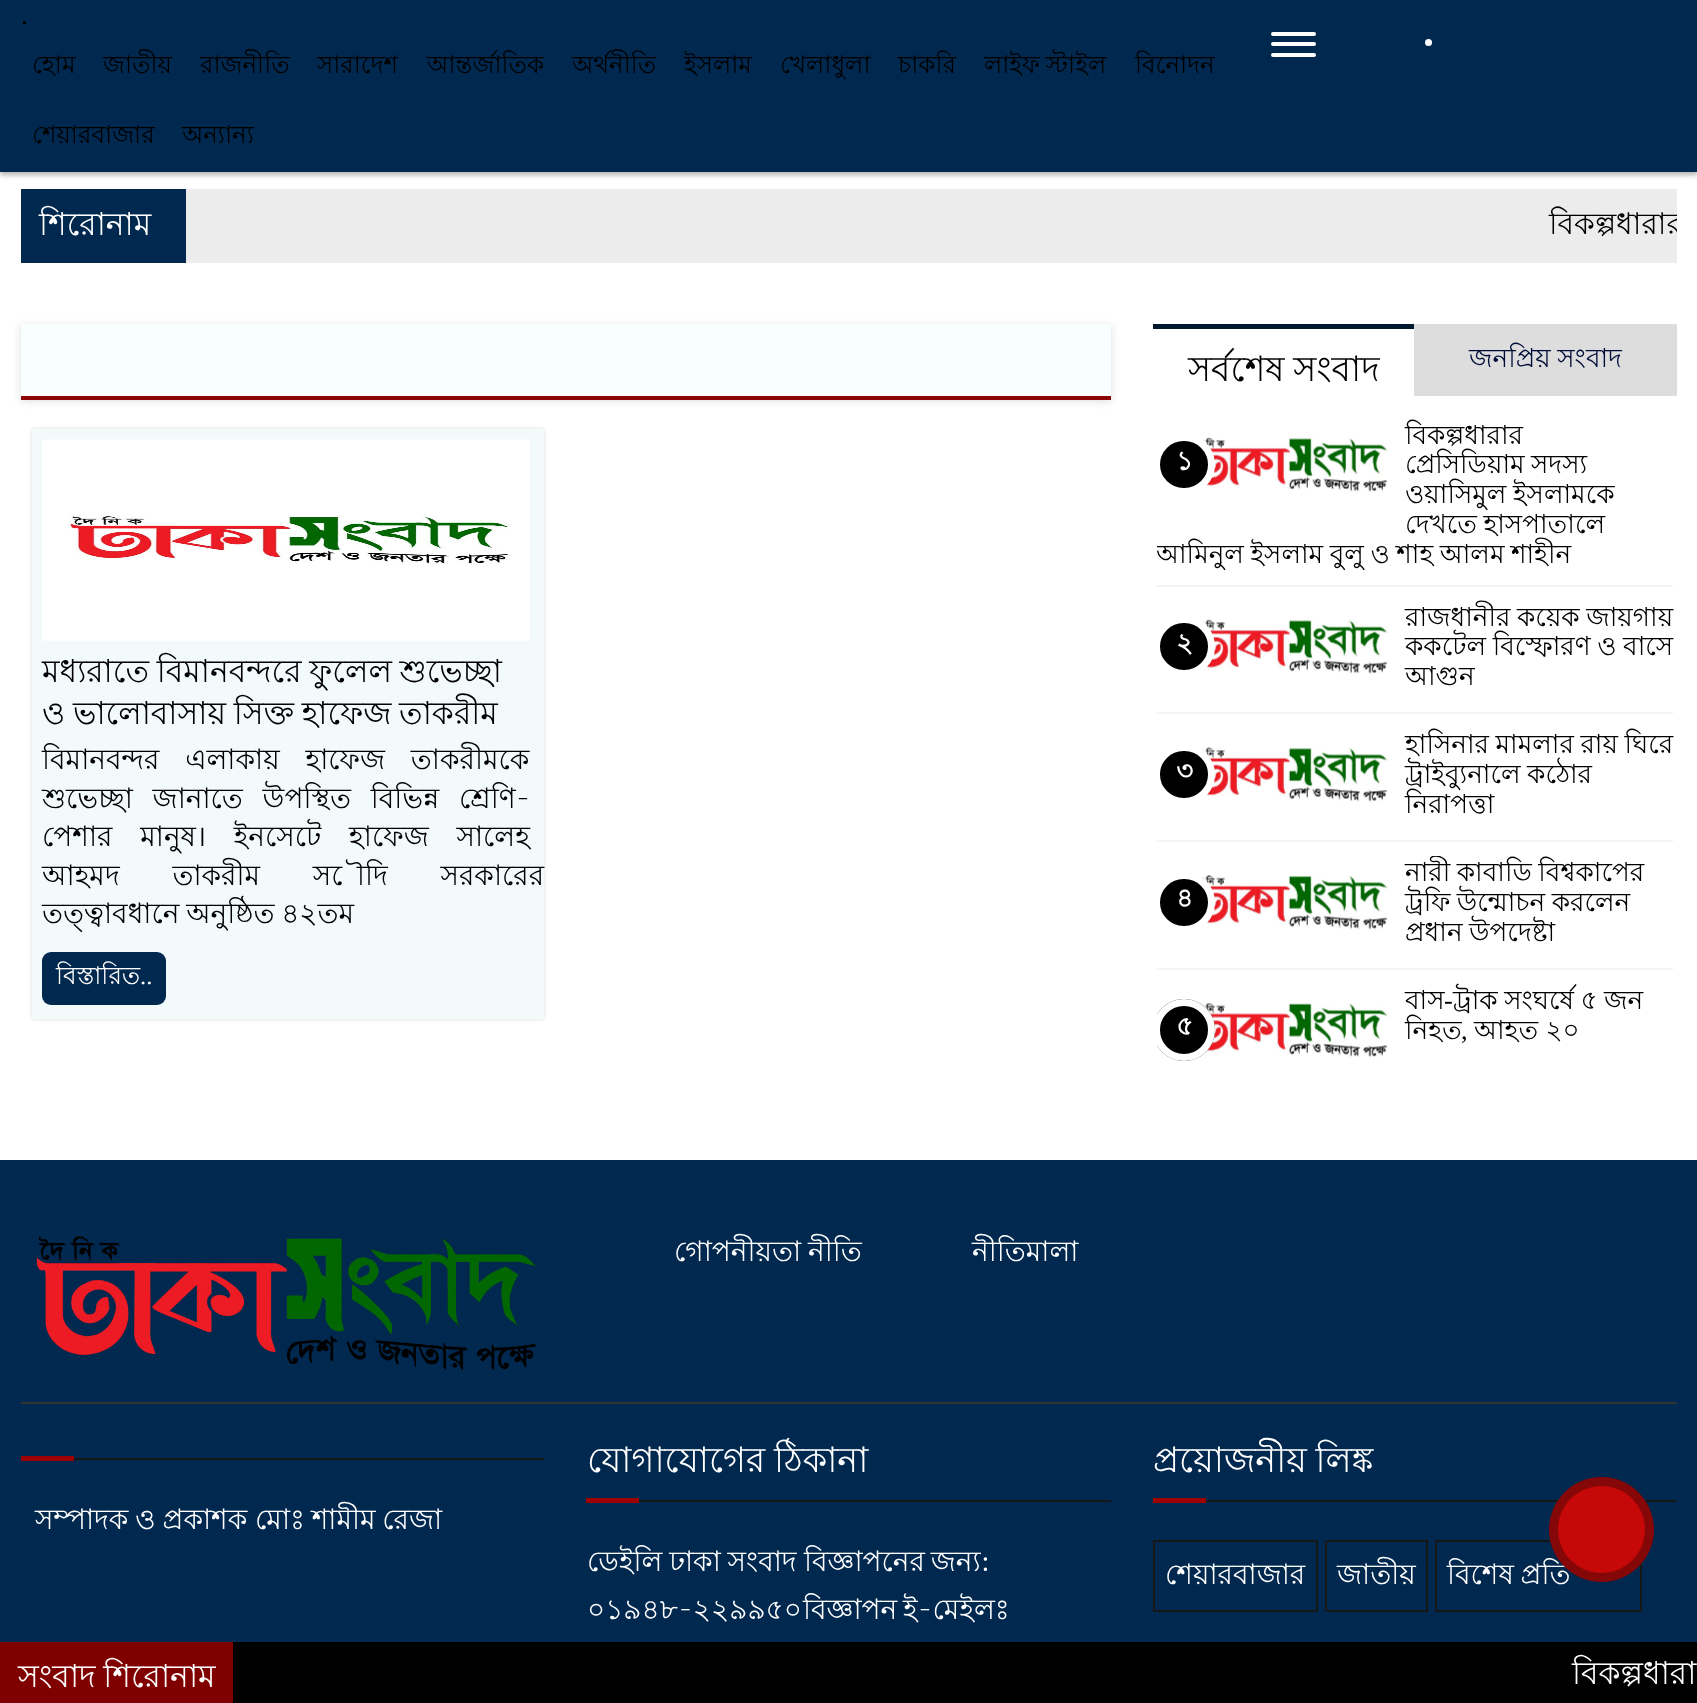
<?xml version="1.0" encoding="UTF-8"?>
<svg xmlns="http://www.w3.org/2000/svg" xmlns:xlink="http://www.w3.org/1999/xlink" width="1697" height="1703">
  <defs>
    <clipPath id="clip1"><path d="M 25 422 h 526 v 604 h -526 z m 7 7 h 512 v 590 h -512 z" clip-rule="evenodd" /></clipPath>
    <clipPath id="clip2"><rect x="1157" y="418" width="516" height="167" /></clipPath>
    <clipPath id="clip3"><rect x="1157" y="600" width="516" height="112" /></clipPath>
    <clipPath id="clip4"><rect x="1157" y="728" width="516" height="112" /></clipPath>
    <clipPath id="clip5"><rect x="1157" y="856" width="516" height="112" /></clipPath>
    <clipPath id="clip6"><rect x="1157" y="984" width="516" height="112" /></clipPath>
    <clipPath id="clip7"><rect x="1157" y="984" width="516" height="96" /></clipPath>
    <clipPath id="clip8"><rect x="21" y="189" width="1656" height="74" /></clipPath>
  </defs>
  <rect width="100%" height="100%" fill="#ffffff" />
  <rect y="4" width="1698" height="171" fill="#000000" fill-opacity="0.3" filter="blur(2.5px)" />
  <rect width="1697" height="172" fill="#01284f" />
  <rect x="1271" y="32" width="45" height="4" rx="2" fill="#ffffff" />
  <rect x="1271" y="42" width="45" height="4" rx="2" fill="#ffffff" />
  <rect x="1271" y="53" width="45" height="4" rx="2" fill="#ffffff" />
  <circle cx="1428.5" cy="42.5" r="3.5" fill="#ffffff" />
  <rect x="21" y="189" width="165" height="74" fill="#01284f" />
  <rect x="186" y="189" width="1491" height="74" fill="#ececec" />
  <rect x="21" y="326" width="1090" height="75" fill="#dddddd" filter="blur(4.5px)" />
  <rect x="21" y="324" width="1090" height="72" fill="#f8fffe" />
  <rect x="21" y="396" width="1090" height="4" fill="#8c0606" />
  <g clip-path="url(#clip1)">
    <rect x="32" y="429" width="512" height="590" fill="#dddddd" filter="blur(2px)" />
  </g>
  <rect x="32" y="429" width="512" height="590" fill="#e2f3f7" fill-opacity="0.44" />
  <image x="42" y="439" width="488" height="202" xlink:href="image1.png" />
  <rect x="42" y="952" width="124" height="53" rx="9" fill="#01284f" />
  <rect x="1153" y="324" width="261" height="5" fill="#01192f" />
  <rect x="1414" y="324" width="263" height="72" fill="#dddddd" />
  <rect x="1157" y="585" width="516" height="2" fill="#f4f4f4" />
  <image x="1197" y="437" width="191" height="55" xlink:href="image2.png" />
  <g clip-path="url(#clip2)">
    <rect x="1156.5" y="437.5" width="55" height="54" rx="27" fill="#000000" stroke="#ffffff" stroke-width="7" />
  </g>
  <rect x="1157" y="712" width="516" height="2" fill="#f4f4f4" />
  <image x="1197" y="619" width="191" height="55" xlink:href="image2.png" />
  <g clip-path="url(#clip3)">
    <rect x="1156.5" y="619.5" width="55" height="54" rx="27" fill="#000000" stroke="#ffffff" stroke-width="7" />
  </g>
  <rect x="1157" y="840" width="516" height="2" fill="#f4f4f4" />
  <image x="1197" y="747" width="191" height="55" xlink:href="image3.png" />
  <g clip-path="url(#clip4)">
    <rect x="1156.5" y="747.5" width="55" height="54" rx="27" fill="#000000" stroke="#ffffff" stroke-width="7" />
  </g>
  <rect x="1157" y="968" width="516" height="2" fill="#f4f4f4" />
  <image x="1197" y="875" width="191" height="55" xlink:href="image4.png" />
  <g clip-path="url(#clip5)">
    <rect x="1156.5" y="875.5" width="55" height="54" rx="27" fill="#000000" stroke="#ffffff" stroke-width="7" />
  </g>
  <image x="1199" y="1003" width="189" height="54" xlink:href="image5.png" />
  <g clip-path="url(#clip6)">
    <circle cx="1184" cy="1030" r="31" fill="#000000" />
  </g>
  <g clip-path="url(#clip7)">
    <circle cx="1184" cy="1030" r="27.5" fill="none" stroke="#ffffff" stroke-width="7" />
  </g>
  <rect y="1160" width="1697" height="482" fill="#01284f" />
  <rect x="21" y="1402" width="1656" height="2" fill="#333333" />
  <image x="36" y="1236" width="501" height="134" xlink:href="image6.png" />
  <rect x="74" y="1458" width="470" height="2" fill="#171717" />
  <rect x="21" y="1456" width="53" height="5" fill="#9d0000" />
  <rect x="639" y="1500" width="472" height="2" fill="#171717" />
  <rect x="586" y="1498" width="53" height="5" fill="#9d0000" />
  <rect x="1206" y="1500" width="471" height="2" fill="#171717" />
  <rect x="1153" y="1498" width="53" height="5" fill="#9d0000" />
  <rect x="1154" y="1541" width="163" height="70" fill="none" stroke="#171717" stroke-width="2" />
  <rect x="1326" y="1541" width="101" height="70" fill="none" stroke="#171717" stroke-width="2" />
  <rect x="1436" y="1541" width="205" height="70" fill="none" stroke="#171717" stroke-width="2" />
  <rect x="233" y="1642" width="1464" height="61" fill="#000000" />
  <rect y="1642" width="233" height="61" fill="#800000" />
  <text x="21" y="24" style="font-family: Liberation Serif; font-size: 28px; fill: #000000">.</text>
  <text x="32" y="73" style="font-family: Lohit Bengali; font-size: 24.5px; fill: #000000">হোম</text>
  <text x="103" y="73" style="font-family: Lohit Bengali; font-size: 24.5px; fill: #000000">জাতীয়</text>
  <text x="200" y="73" style="font-family: Lohit Bengali; font-size: 24.5px; fill: #000000">রাজনীতি</text>
  <text x="317" y="73" style="font-family: Lohit Bengali; font-size: 24.5px; fill: #000000">সারাদেশ</text>
  <text x="427" y="73" style="font-family: Lohit Bengali; font-size: 24.5px; fill: #000000">আন্তর্জাতিক</text>
  <text x="572" y="73" style="font-family: Lohit Bengali; font-size: 24.5px; fill: #000000">অর্থনীতি</text>
  <text x="684" y="73" style="font-family: Lohit Bengali; font-size: 24.5px; fill: #000000">ইসলাম</text>
  <text x="780" y="73" style="font-family: Lohit Bengali; font-size: 24.5px; fill: #000000">খেলাধুলা</text>
  <text x="898" y="73" style="font-family: Lohit Bengali; font-size: 24.5px; fill: #000000">চাকরি</text>
  <text x="984" y="73" word-spacing="-1" style="font-family: Lohit Bengali; font-size: 24.5px; fill: #000000">লাইফ স্টাইল</text>
  <text x="1135" y="73" style="font-family: Lohit Bengali; font-size: 24.5px; fill: #000000">বিনোদন</text>
  <text x="32" y="143" style="font-family: Lohit Bengali; font-size: 24.5px; fill: #000000">শেয়ারবাজার</text>
  <text x="182" y="143" style="font-family: Lohit Bengali; font-size: 24.5px; fill: #000000">অন্যান্য</text>
  <text x="39" y="235" style="font-family: Lohit Bengali; font-size: 31.5px; fill: #ffffff">শিরোনাম</text>
  <g clip-path="url(#clip8)">
    <text x="1549" y="234" word-spacing="-1" style="font-family: Lohit Bengali; font-size: 29.75px; fill: #000000">বিকল্পধারার</text>
  </g>
  <text x="42" y="682" word-spacing="-1" style="font-family: Lohit Bengali; font-size: 31.5px; fill: #000000">মধ্যরাতে বিমানবন্দরে ফুলেল শুভেচ্ছা</text>
  <text x="42" y="724" word-spacing="-1" style="font-family: Lohit Bengali; font-size: 31.5px; fill: #000000">ও ভালোবাসায় সিক্ত হাফেজ তাকরীম</text>
  <text x="42" y="769" word-spacing="18" style="font-family: Lohit Bengali; font-size: 28px; fill: #000000">বিমানবন্দর এলাকায় হাফেজ তাকরীমকে</text>
  <text x="42" y="808" word-spacing="12" style="font-family: Lohit Bengali; font-size: 28px; fill: #000000">শুভেচ্ছা জানাতে উপস্থিত বিভিন্ন শ্রেণি-</text>
  <text x="42" y="846" word-spacing="20" style="font-family: Lohit Bengali; font-size: 28px; fill: #000000">পেশার মানুষ। ইনসেটে হাফেজ সালেহ</text>
  <text x="42" y="885" word-spacing="45" style="font-family: Lohit Bengali; font-size: 28px; fill: #000000">আহমদ তাকরীম সৌদি সরকারের</text>
  <text x="42" y="923" word-spacing="-1" style="font-family: Lohit Bengali; font-size: 28px; fill: #000000">তত্ত্বাবধানে অনুষ্ঠিত ৪২তম</text>
  <text x="56" y="984" style="font-family: Lohit Bengali; font-size: 24.5px; fill: #ffffff">বিস্তারিত</text>
  <text x="140" y="984" style="font-family: Liberation Serif; font-size: 24.5px; fill: #ffffff">..</text>
  <text x="1188" y="381" word-spacing="-1" style="font-family: Lohit Bengali; font-size: 35px; fill: #000000">সর্বশেষ সংবাদ</text>
  <text x="1469" y="367" word-spacing="-0.75" style="font-family: Lohit Bengali; font-size: 26.25px; fill: #000d39">জনপ্রিয় সংবাদ</text>
  <text x="1405" y="444" style="font-family: Lohit Bengali; font-size: 26.25px; fill: #000000">বিকল্পধারার</text>
  <text x="1405" y="473" style="font-family: Lohit Bengali; font-size: 26.25px; fill: #000000">প্রেসিডিয়াম</text>
  <text x="1531" y="473" style="font-family: Lohit Bengali; font-size: 26.25px; fill: #000000">সদস্য</text>
  <text x="1405" y="503" word-spacing="-0.75" style="font-family: Lohit Bengali; font-size: 26.25px; fill: #000000">ওয়াসিমুল ইসলামকে</text>
  <text x="1405" y="533" word-spacing="-0.75" style="font-family: Lohit Bengali; font-size: 26.25px; fill: #000000">দেখতে হাসপাতালে</text>
  <g clip-path="url(#clip2)">
    <text x="1156" y="563" word-spacing="-0.75" style="font-family: Lohit Bengali; font-size: 26.25px; fill: #000000">আমিনুল ইসলাম বুলু ও শাহ আলম শাহীন</text>
  </g>
  <text x="1176" y="470" style="font-family: Lohit Bengali; font-size: 26.25px; font-weight: bold; fill: #ffffff">১</text>
  <text x="1176" y="652" style="font-family: Lohit Bengali; font-size: 26.25px; font-weight: bold; fill: #ffffff">২</text>
  <text x="1405" y="626" word-spacing="-0.75" style="font-family: Lohit Bengali; font-size: 26.25px; fill: #000000">রাজধানীর কয়েক জায়গায়</text>
  <text x="1405" y="655" word-spacing="-0.75" style="font-family: Lohit Bengali; font-size: 26.25px; fill: #000000">ককটেল বিস্ফোরণ ও বাসে</text>
  <text x="1405" y="685" style="font-family: Lohit Bengali; font-size: 26.25px; fill: #000000">আগুন</text>
  <text x="1176" y="780" style="font-family: Lohit Bengali; font-size: 26.25px; font-weight: bold; fill: #ffffff">৩</text>
  <text x="1405" y="753" word-spacing="-0.75" style="font-family: Lohit Bengali; font-size: 26.25px; fill: #000000">হাসিনার মামলার রায় ঘিরে</text>
  <text x="1405" y="783" word-spacing="-0.75" style="font-family: Lohit Bengali; font-size: 26.25px; fill: #000000">ট্রাইব্যুনালে কঠোর</text>
  <text x="1405" y="813" style="font-family: Lohit Bengali; font-size: 26.25px; fill: #000000">নিরাপত্তা</text>
  <text x="1176" y="907" style="font-family: Lohit Bengali; font-size: 26.25px; font-weight: bold; fill: #ffffff">৪</text>
  <g clip-path="url(#clip5)">
    <text x="1405" y="881" word-spacing="-0.75" style="font-family: Lohit Bengali; font-size: 26.25px; fill: #000000">নারী কাবাডি বিশ্বকাপের</text>
  </g>
  <text x="1405" y="911" word-spacing="-0.75" style="font-family: Lohit Bengali; font-size: 26.25px; fill: #000000">ট্রফি উন্মোচন করলেন</text>
  <text x="1405" y="941" word-spacing="-0.75" style="font-family: Lohit Bengali; font-size: 26.25px; fill: #000000">প্রধান উপদেষ্টা</text>
  <text x="1176" y="1035" style="font-family: Lohit Bengali; font-size: 26.25px; font-weight: bold; fill: #ffffff">৫</text>
  <text x="1405" y="1009" style="font-family: Lohit Bengali; font-size: 26.25px; fill: #000000">বাস</text>
  <text x="1444" y="1009" style="font-family: Liberation Serif; font-size: 26.25px; fill: #000000">-</text>
  <text x="1453" y="1009" word-spacing="-0.75" style="font-family: Lohit Bengali; font-size: 26.25px; fill: #000000">ট্রাক সংঘর্ষে ৫ জন</text>
  <text x="1405" y="1039" style="font-family: Lohit Bengali; font-size: 26.25px; fill: #000000">নিহত</text>
  <text x="1461" y="1039" style="font-family: Liberation Serif; font-size: 26.25px; fill: #000000">,</text>
  <text x="1474" y="1039" style="font-family: Lohit Bengali; font-size: 26.25px; fill: #000000">আহত ২০</text>
  <text x="674" y="1261" word-spacing="-1" style="font-family: Lohit Bengali; font-size: 28px; fill: #ffffff">গোপনীয়তা নীতি</text>
  <text x="972" y="1261" style="font-family: Lohit Bengali; font-size: 28px; fill: #ffffff">নীতিমালা</text>
  <text x="35" y="1529" word-spacing="-1" style="font-family: Lohit Bengali; font-size: 28px; fill: #ffffff">সম্পাদক ও প্রকাশক</text>
  <text x="255" y="1529" word-spacing="-1" style="font-family: Lohit Bengali; font-size: 28px; fill: #ffffff">মোঃ শামীম রেজা</text>
  <text x="587" y="1472" word-spacing="-1" style="font-family: Lohit Bengali; font-size: 35px; fill: #ffffff">যোগাযোগের ঠিকানা</text>
  <text x="587" y="1571" word-spacing="-1" style="font-family: Lohit Bengali; font-size: 28px; fill: #ffffff">ডেইলি ঢাকা সংবাদ</text>
  <text x="804" y="1571" word-spacing="-2" style="font-family: Lohit Bengali; font-size: 28px; fill: #ffffff">বিজ্ঞাপনের জন্য:</text>
  <text x="587" y="1619" style="font-family: Lohit Bengali; font-size: 28px; fill: #ffffff">০১৯৪৮-২২৯৯৫০</text>
  <text x="803" y="1619" word-spacing="-2" style="font-family: Lohit Bengali; font-size: 28px; fill: #ffffff">বিজ্ঞাপন ই-মেইলঃ</text>
  <text x="1153" y="1472" word-spacing="-1" style="font-family: Lohit Bengali; font-size: 35px; fill: #ffffff">প্রয়োজনীয় লিঙ্ক</text>
  <text x="1165" y="1584" style="font-family: Lohit Bengali; font-size: 28px; fill: #ffffff">শেয়ারবাজার</text>
  <text x="1337" y="1584" style="font-family: Lohit Bengali; font-size: 28px; fill: #ffffff">জাতীয়</text>
  <text x="1447" y="1584" word-spacing="-1" style="font-family: Lohit Bengali; font-size: 28px; fill: #ffffff">বিশেষ প্রতি</text>
  <circle cx="1601.5" cy="1529.5" r="52.5" fill="#860707" />
  <circle cx="1601.5" cy="1529.5" r="43.5" fill="#c60808" />
  <text x="18" y="1687" word-spacing="-1" style="font-family: Lohit Bengali; font-size: 31.5px; fill: #ffffff">সংবাদ শিরোনাম</text>
  <text x="1572" y="1684" word-spacing="-1" style="font-family: Lohit Bengali; font-size: 31.5px; fill: #ffffff">বিকল্পধারা</text>
</svg>
